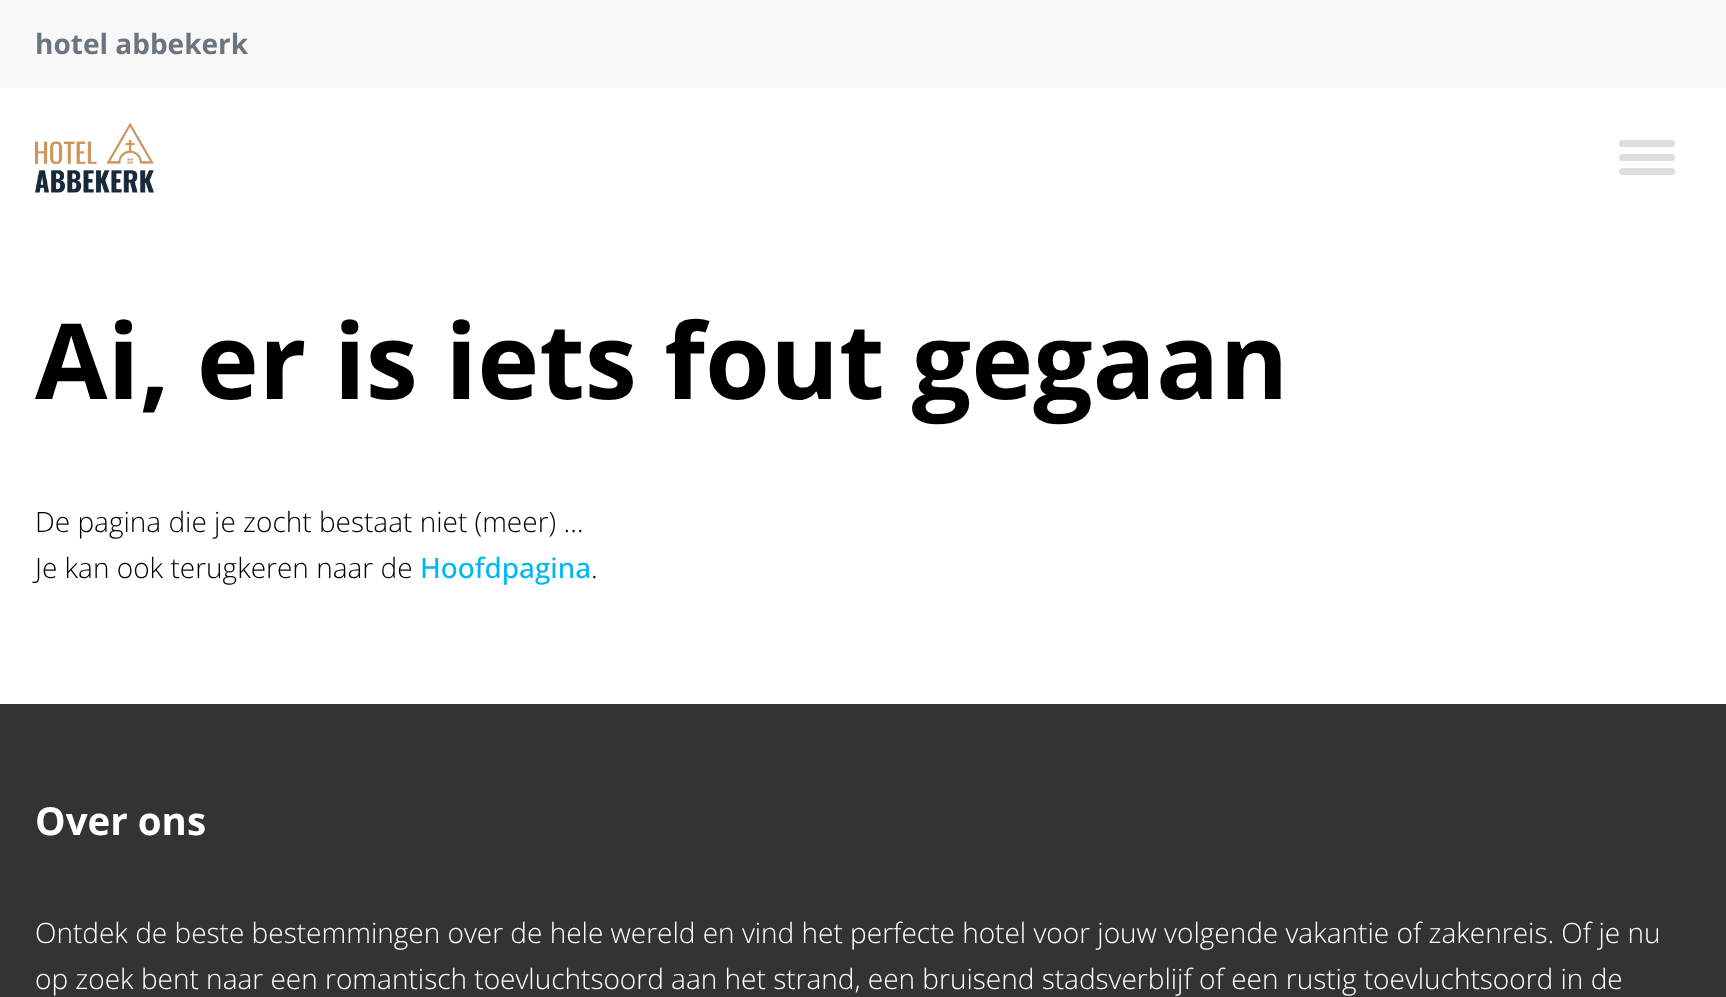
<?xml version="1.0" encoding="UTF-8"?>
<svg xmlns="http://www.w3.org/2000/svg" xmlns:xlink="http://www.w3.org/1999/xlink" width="1726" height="997">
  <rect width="100%" height="100%" fill="#ffffff" />
  <rect width="1726" height="88" fill="#f8f8f8" />
  <image x="35" y="122" width="119" height="71" xlink:href="image1.png" />
  <rect x="1619" y="140" width="56" height="7" rx="3.5" fill="#dddddd" />
  <rect x="1619" y="154" width="56" height="7" rx="3.5" fill="#dddddd" />
  <rect x="1619" y="168" width="56" height="7" rx="3.5" fill="#dddddd" />
  <rect y="704" width="1726" height="293" fill="#333333" />
  <text x="35" y="54" style="font-family: Open Sans; font-size: 28px; font-weight: bold; fill: #6c757d">hotel abbekerk</text>
  <text x="35" y="399" style="font-family: Open Sans; font-size: 105px; font-weight: bold; fill: #000000">Ai, er is iets fout gegaan</text>
  <text x="35" y="532" style="font-family: Open Sans; font-size: 28px; font-weight: 300; fill: #000000">De pagina die je zocht bestaat niet (meer) …</text>
  <text x="35" y="578" style="font-family: Open Sans; font-size: 28px; font-weight: 300; fill: #000000">Je kan ook terugkeren naar de</text>
  <text x="420" y="578" style="font-family: Open Sans; font-size: 28px; font-weight: 500; fill: #00b8f1">Hoofdpagina</text>
  <text x="591" y="578" style="font-family: Open Sans; font-size: 28px; font-weight: 300; fill: #000000">.</text>
  <text x="35" y="835" style="font-family: Open Sans; font-size: 38.5px; font-weight: bold; fill: #ffffff">Over ons</text>
  <text x="35" y="943" style="font-family: Open Sans; font-size: 28px; font-weight: 300; fill: #ffffff">Ontdek de beste bestemmingen over de hele wereld en vind het perfecte hotel voor jouw volgende vakantie of zakenreis. Of je nu</text>
  <text x="35" y="989" style="font-family: Open Sans; font-size: 28px; font-weight: 300; fill: #ffffff">op zoek bent naar een romantisch toevluchtsoord aan het strand, een bruisend stadsverblijf of een rustig toevluchtsoord in de</text>
</svg>
